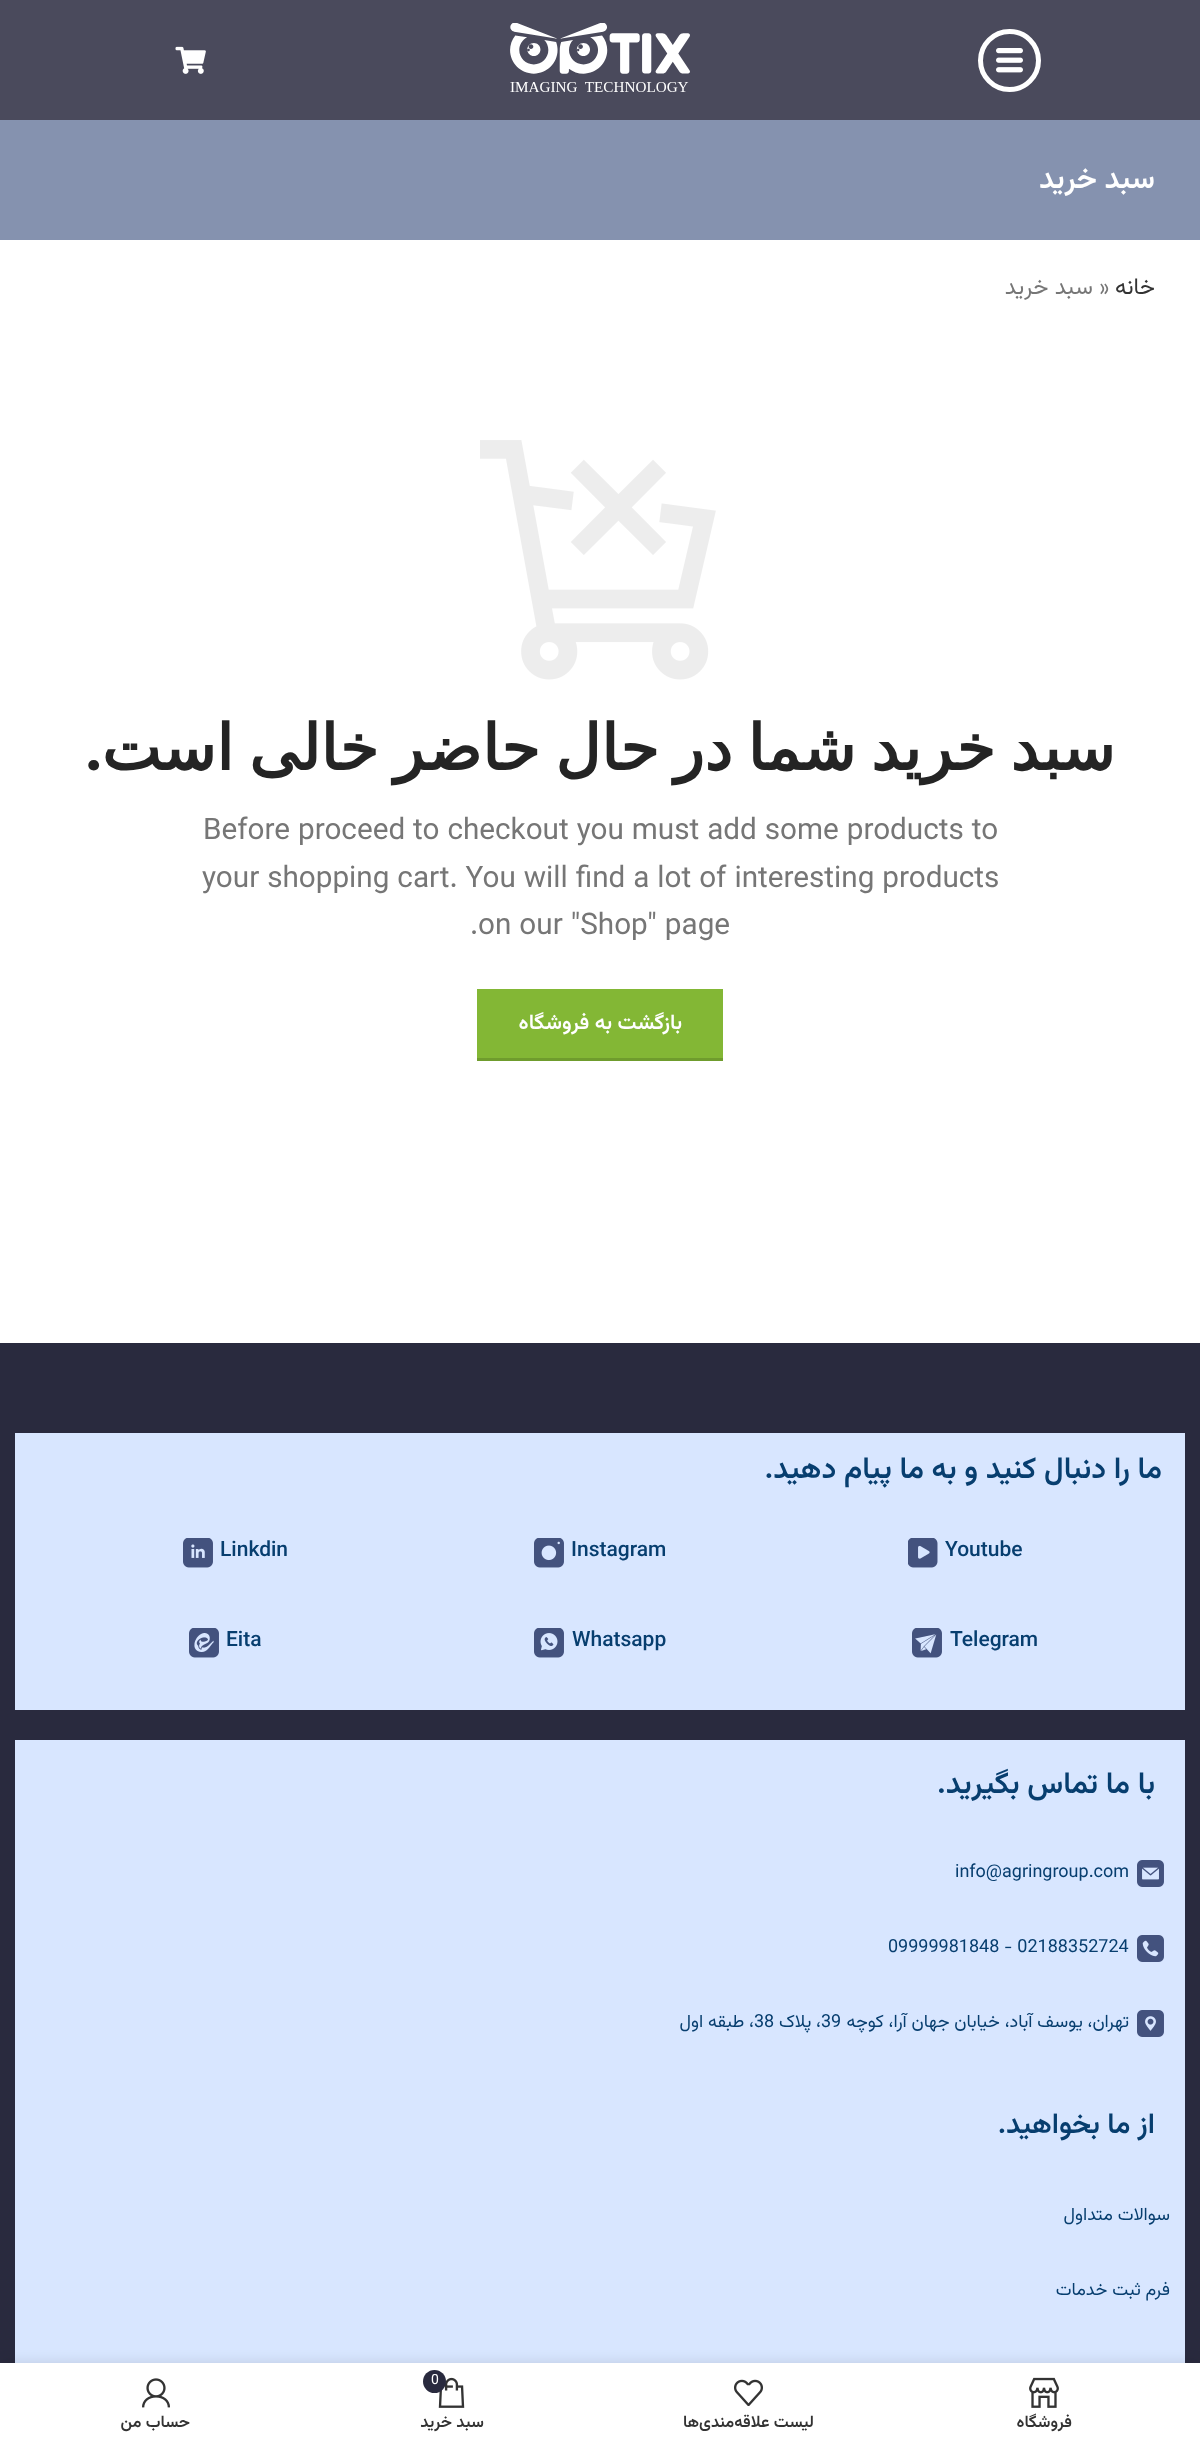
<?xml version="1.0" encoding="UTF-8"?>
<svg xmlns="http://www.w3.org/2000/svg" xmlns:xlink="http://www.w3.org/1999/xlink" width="1200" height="2444">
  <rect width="100%" height="100%" fill="#ffffff" />
  <rect width="1200" height="120" fill="#4a4a5c" />
  <circle cx="1009.5" cy="60.5" r="29" fill="none" stroke="#ffffff" stroke-width="5" />
  <image x="996" y="48" width="27" height="25" xlink:href="image1.png" />
  <image x="510" y="23" width="180" height="69" xlink:href="image2.png" />
  <image x="175" y="46" width="31" height="28" xlink:href="image3.png" />
  <rect y="120" width="1200" height="120" fill="#8592af" />
  <image x="480" y="440" width="236" height="240" xlink:href="image4.png" />
  <rect x="477" y="989" width="246" height="69" fill="#83b735" />
  <rect x="477" y="1058" width="246" height="3" fill="#6f9c2d" />
  <rect y="1343" width="1200" height="1020" fill="#292a3e" />
  <rect x="15" y="1433" width="1170" height="277" fill="#d8e6ff" />
  <image x="908" y="1538" width="30" height="30" xlink:href="image5.png" />
  <image x="534" y="1538" width="30" height="30" xlink:href="image6.png" />
  <image x="183" y="1538" width="30" height="30" xlink:href="image7.png" />
  <image x="912" y="1628" width="30" height="30" xlink:href="image8.png" />
  <image x="534" y="1628" width="30" height="30" xlink:href="image9.png" />
  <image x="189" y="1628" width="30" height="30" xlink:href="image10.png" />
  <rect x="15" y="1740" width="1170" height="623" fill="#d8e6ff" />
  <image x="1137" y="1860" width="27" height="27" xlink:href="image11.png" />
  <image x="1137" y="1935" width="27" height="27" xlink:href="image12.png" />
  <image x="1137" y="2010" width="27" height="27" xlink:href="image13.png" />
  <rect y="2363" width="1200" height="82" fill="#000000" fill-opacity="0.12" filter="blur(7px)" />
  <rect y="2363" width="1200" height="81" fill="#ffffff" />
  <image x="1029" y="2377" width="30" height="31" xlink:href="image14.png" />
  <image x="734" y="2379" width="29" height="27" xlink:href="image15.png" />
  <image x="438" y="2377" width="27" height="31" xlink:href="image16.png" />
  <circle cx="434.5" cy="2381.5" r="11.5" fill="#292a3e" />
  <image x="142" y="2378" width="28" height="30" xlink:href="image17.png" />
  <text x="1155" y="188" style="font-family: Vazirmatn; font-size: 30px; font-weight: 600; direction: rtl; fill: #ffffff">سبد خرید</text>
  <text x="1155" y="294" style="font-family: Vazirmatn; font-size: 23px; direction: rtl; fill: #333333">خانه</text>
  <text x="1099" y="294" style="font-family: Vazirmatn; font-size: 23px; fill: #767676">»</text>
  <text x="1093" y="294" style="font-family: Vazirmatn; font-size: 23px; direction: rtl; fill: #767676">سبد خرید</text>
  <text x="1115" y="770" word-spacing="-5" style="font-family: DejaVu Sans; font-size: 63px; font-weight: bold; direction: rtl; fill: #242424">سبد خرید شما در حال حاضر خالی است</text>
  <text x="102" y="770" style="font-family: Poppins; font-size: 63px; font-weight: 600; direction: rtl; fill: #242424">.</text>
  <text x="203" y="839" style="font-family: Vazirmatn; font-size: 29.7px; fill: #767676">Before proceed to checkout you must add some products to</text>
  <text x="202" y="887" style="font-family: Vazirmatn; font-size: 29.7px; fill: #767676">your shopping cart. You will find a lot of interesting products</text>
  <text x="470" y="934" style="font-family: Vazirmatn; font-size: 29.7px; fill: #767676">.on our "Shop" page</text>
  <text x="682" y="1029" style="font-family: Vazirmatn; font-size: 21px; font-weight: 600; direction: rtl; fill: #ffffff">بازگشت به فروشگاه</text>
  <text x="1162" y="1478" style="font-family: Vazirmatn; font-size: 30px; font-weight: 600; direction: rtl; fill: #073e6f">ما را دنبال کنید و به ما پیام دهید.</text>
  <text x="945" y="1556" style="font-family: Vazirmatn; font-size: 21px; font-weight: 500; fill: #073e6f">Youtube</text>
  <text x="571" y="1556" style="font-family: Vazirmatn; font-size: 21px; font-weight: 500; fill: #073e6f">Instagram</text>
  <text x="220" y="1556" style="font-family: Vazirmatn; font-size: 21px; font-weight: 500; fill: #073e6f">Linkdin</text>
  <text x="950" y="1646" style="font-family: Vazirmatn; font-size: 21px; font-weight: 500; fill: #073e6f">Telegram</text>
  <text x="572" y="1646" style="font-family: Vazirmatn; font-size: 21px; font-weight: 500; fill: #073e6f">Whatsapp</text>
  <text x="226" y="1646" style="font-family: Vazirmatn; font-size: 21px; font-weight: 500; fill: #073e6f">Eita</text>
  <text x="1155" y="1793" style="font-family: Vazirmatn; font-size: 30px; font-weight: 600; direction: rtl; fill: #073e6f">با ما تماس بگیرید.</text>
  <text x="955" y="1877" style="font-family: Vazirmatn; font-size: 18px; fill: #073e6f">info@agringroup.com</text>
  <text x="888" y="1952" style="font-family: Vazirmatn; font-size: 18px; fill: #073e6f">09999981848 - 02188352724</text>
  <text x="1129" y="2027" style="font-family: Vazirmatn; font-size: 18px; direction: rtl; fill: #073e6f">تهران، یوسف آباد، خیابان جهان آرا، کوچه</text>
  <text x="821" y="2027" style="font-family: Vazirmatn; font-size: 18px; fill: #073e6f">39</text>
  <text x="821" y="2027" style="font-family: Vazirmatn; font-size: 18px; direction: rtl; fill: #073e6f">، پلاک</text>
  <text x="754" y="2027" style="font-family: Vazirmatn; font-size: 18px; fill: #073e6f">38</text>
  <text x="754" y="2027" style="font-family: Vazirmatn; font-size: 18px; direction: rtl; fill: #073e6f">، طبقه اول</text>
  <text x="1155" y="2133" style="font-family: Vazirmatn; font-size: 28.5px; font-weight: 600; direction: rtl; fill: #073e6f">از ما بخواهید.</text>
  <text x="1170" y="2220" style="font-family: Vazirmatn; font-size: 18px; direction: rtl; fill: #073e6f">سوالات متداول</text>
  <text x="1170" y="2295" style="font-family: Vazirmatn; font-size: 18px; direction: rtl; fill: #073e6f">فرم ثبت خدمات</text>
  <text x="1072" y="2427" style="font-family: Vazirmatn; font-size: 16.5px; font-weight: 600; direction: rtl; fill: #333333">فروشگاه</text>
  <text x="814" y="2427" style="font-family: Vazirmatn; font-size: 16.5px; font-weight: 600; direction: rtl; fill: #333333">لیست علاقه‌مندی‌ها</text>
  <text x="431" y="2384" style="font-family: Vazirmatn; font-size: 14px; fill: #ffffff">0</text>
  <text x="484" y="2427" style="font-family: Vazirmatn; font-size: 16.5px; font-weight: 600; direction: rtl; fill: #333333">سبد خرید</text>
  <text x="190" y="2427" style="font-family: Vazirmatn; font-size: 16.5px; font-weight: 600; direction: rtl; fill: #333333">حساب من</text>
</svg>
